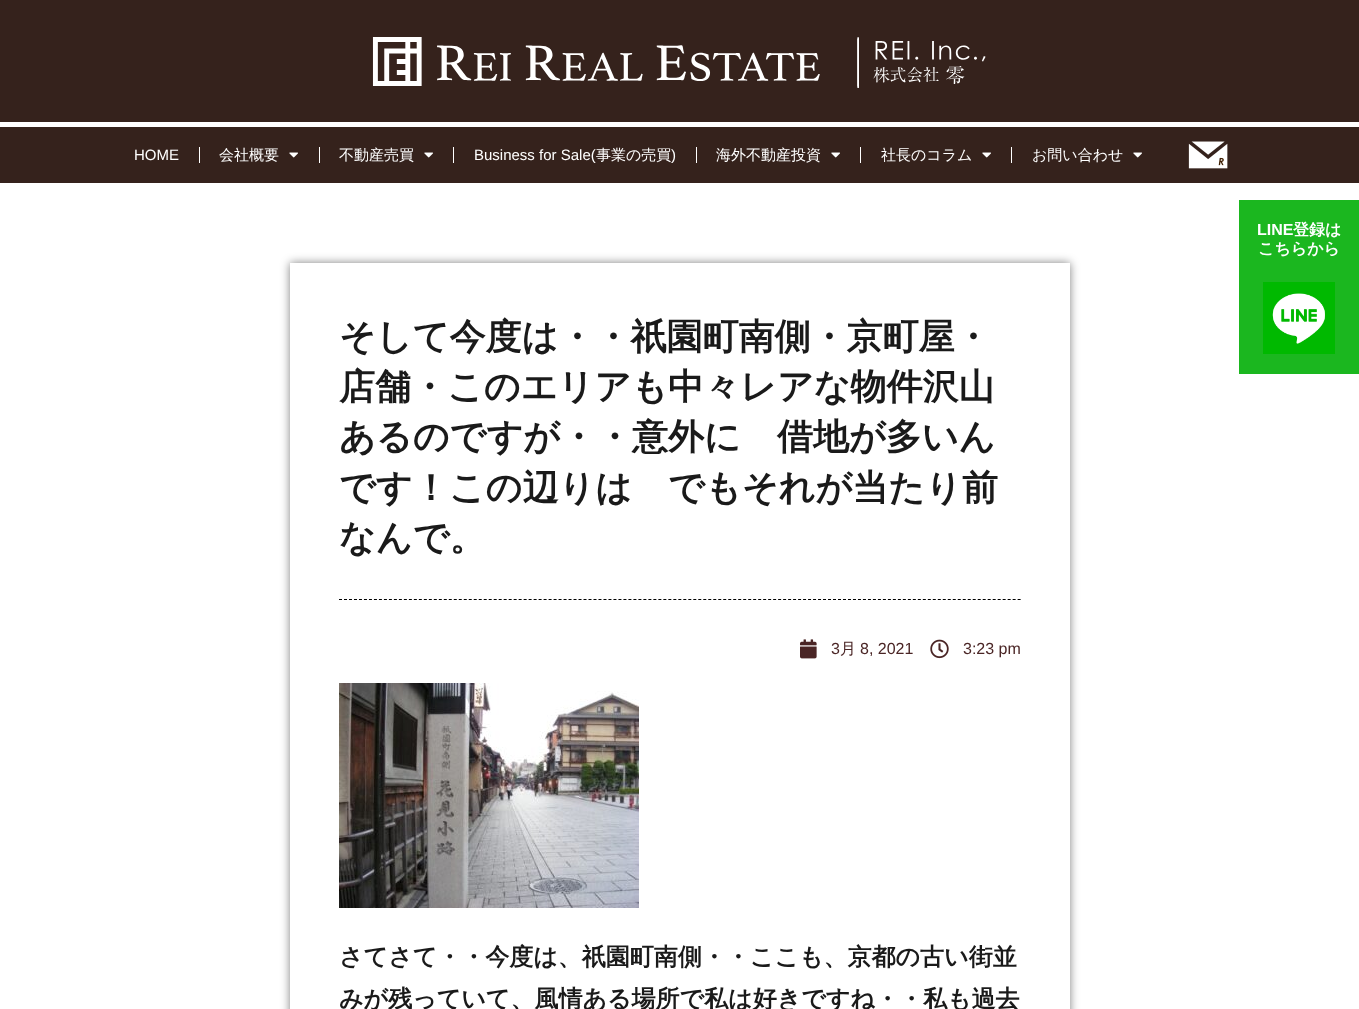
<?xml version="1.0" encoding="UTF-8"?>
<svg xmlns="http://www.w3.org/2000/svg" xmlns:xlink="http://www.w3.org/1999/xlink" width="1359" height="1009">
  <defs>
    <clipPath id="clip1"><path d="M 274 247 h 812 v 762 h -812 z m 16 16 h 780 v 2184 h -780 z" clip-rule="evenodd" /></clipPath>
  </defs>
  <rect width="100%" height="100%" fill="#ffffff" />
  <rect width="1359" height="122" fill="#35221c" />
  <image x="372" y="37" width="614" height="51" xlink:href="image1.png" />
  <rect y="127" width="1359" height="56" fill="#35221c" />
  <rect x="199" y="147" width="1" height="16" fill="#ffffff" />
  <image x="289" y="152" width="9" height="6" xlink:href="image2.png" />
  <rect x="319" y="147" width="1" height="16" fill="#ffffff" />
  <image x="424" y="152" width="9" height="6" xlink:href="image2.png" />
  <rect x="453" y="147" width="1" height="16" fill="#ffffff" />
  <rect x="696" y="147" width="1" height="16" fill="#ffffff" />
  <image x="831" y="152" width="9" height="6" xlink:href="image2.png" />
  <rect x="860" y="147" width="1" height="16" fill="#ffffff" />
  <image x="982" y="152" width="9" height="6" xlink:href="image2.png" />
  <rect x="1011" y="147" width="1" height="16" fill="#ffffff" />
  <image x="1133" y="152" width="9" height="6" xlink:href="image2.png" />
  <image x="1188" y="141" width="40" height="28" xlink:href="image3.png" />
  <rect x="1239" y="200" width="120" height="174" fill="#1bb71f" />
  <image x="1263" y="282" width="72" height="72" xlink:href="image4.png" />
  <g clip-path="url(#clip1)">
    <rect x="290" y="263" width="780" height="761" fill="#000000" fill-opacity="0.5" filter="blur(5px)" />
  </g>
  <path d="M 339 599.5 h 682" fill="none" stroke="#000000" stroke-dasharray="3 1.99" />
  <image x="800" y="639" width="17" height="20" xlink:href="image5.png" />
  <image x="930" y="639" width="19" height="20" xlink:href="image6.png" />
  <image x="339" y="683" width="300" height="225" xlink:href="image7.png" />
  <text x="134" y="160" style="font-family: Liberation Sans; font-size: 15px; fill: #ffffff">HOME</text>
  <text x="219" y="160" style="font-family: WenQuanYi Zen Hei; font-size: 15px; font-weight: 500; fill: #ffffff">会社概要</text>
  <text x="339" y="160" style="font-family: WenQuanYi Zen Hei; font-size: 15px; font-weight: 500; fill: #ffffff">不動産売買</text>
  <text x="474" y="160" style="font-family: Liberation Sans; font-size: 15px; fill: #ffffff">Business for Sale(</text>
  <text x="596" y="160" style="font-family: WenQuanYi Zen Hei; font-size: 15px; font-weight: 500; fill: #ffffff">事業の売買</text>
  <text x="671" y="160" style="font-family: Liberation Sans; font-size: 15px; fill: #ffffff">)</text>
  <text x="716" y="160" style="font-family: WenQuanYi Zen Hei; font-size: 15px; font-weight: 500; fill: #ffffff">海外不動産投資</text>
  <text x="881" y="160" style="font-family: WenQuanYi Zen Hei; font-size: 15px; font-weight: 500; fill: #ffffff">社長のコラム</text>
  <text x="1032" y="160" style="font-family: WenQuanYi Zen Hei; font-size: 15px; font-weight: 500; fill: #ffffff">お問い合わせ</text>
  <text x="1257" y="235" style="font-family: Liberation Sans; font-size: 16px; font-weight: bold; fill: #ffffff">LINE</text>
  <text x="1293" y="235" style="font-family: WenQuanYi Zen Hei; font-size: 16px; font-weight: bold; fill: #ffffff">登録は</text>
  <text x="1258" y="254" style="font-family: WenQuanYi Zen Hei; font-size: 16px; font-weight: bold; fill: #ffffff">こちらから</text>
  <text x="339" y="349" style="font-family: WenQuanYi Zen Hei; font-size: 36px; font-weight: bold; fill: #1a1a1a">そして今度は・・祇園町南側・京町屋・</text>
  <text x="339" y="399" style="font-family: WenQuanYi Zen Hei; font-size: 36px; font-weight: bold; fill: #1a1a1a">店舗・このエリアも中々レアな物件沢山</text>
  <text x="339" y="449" style="font-family: WenQuanYi Zen Hei; font-size: 36px; font-weight: bold; fill: #1a1a1a">あるのですが・・意外に　借地が多いん</text>
  <text x="339" y="500" style="font-family: WenQuanYi Zen Hei; font-size: 36px; font-weight: bold; fill: #1a1a1a">です！この辺りは　でもそれが当たり前</text>
  <text x="339" y="550" style="font-family: WenQuanYi Zen Hei; font-size: 36px; font-weight: bold; fill: #1a1a1a">なんで。</text>
  <text x="831" y="654" style="font-family: Liberation Sans; font-size: 16px; fill: #4a2525">3</text>
  <text x="840" y="654" style="font-family: WenQuanYi Zen Hei; font-size: 16px; font-weight: 500; fill: #4a2525">月</text>
  <text x="860" y="654" style="font-family: Liberation Sans; font-size: 16px; fill: #4a2525">8, 2021</text>
  <text x="963" y="654" style="font-family: Liberation Sans; font-size: 16px; fill: #4a2525">3:23 pm</text>
  <text x="339" y="965" style="font-family: WenQuanYi Zen Hei; font-size: 24px; font-weight: bold; fill: #1a1a1a">さてさて・・今度は、祇園町南側・・ここも、京都の古い街並</text>
  <text x="339" y="1007" style="font-family: WenQuanYi Zen Hei; font-size: 24px; font-weight: bold; fill: #1a1a1a">みが残っていて、風情ある場所で私は好きですね・・私も過去</text>
</svg>
